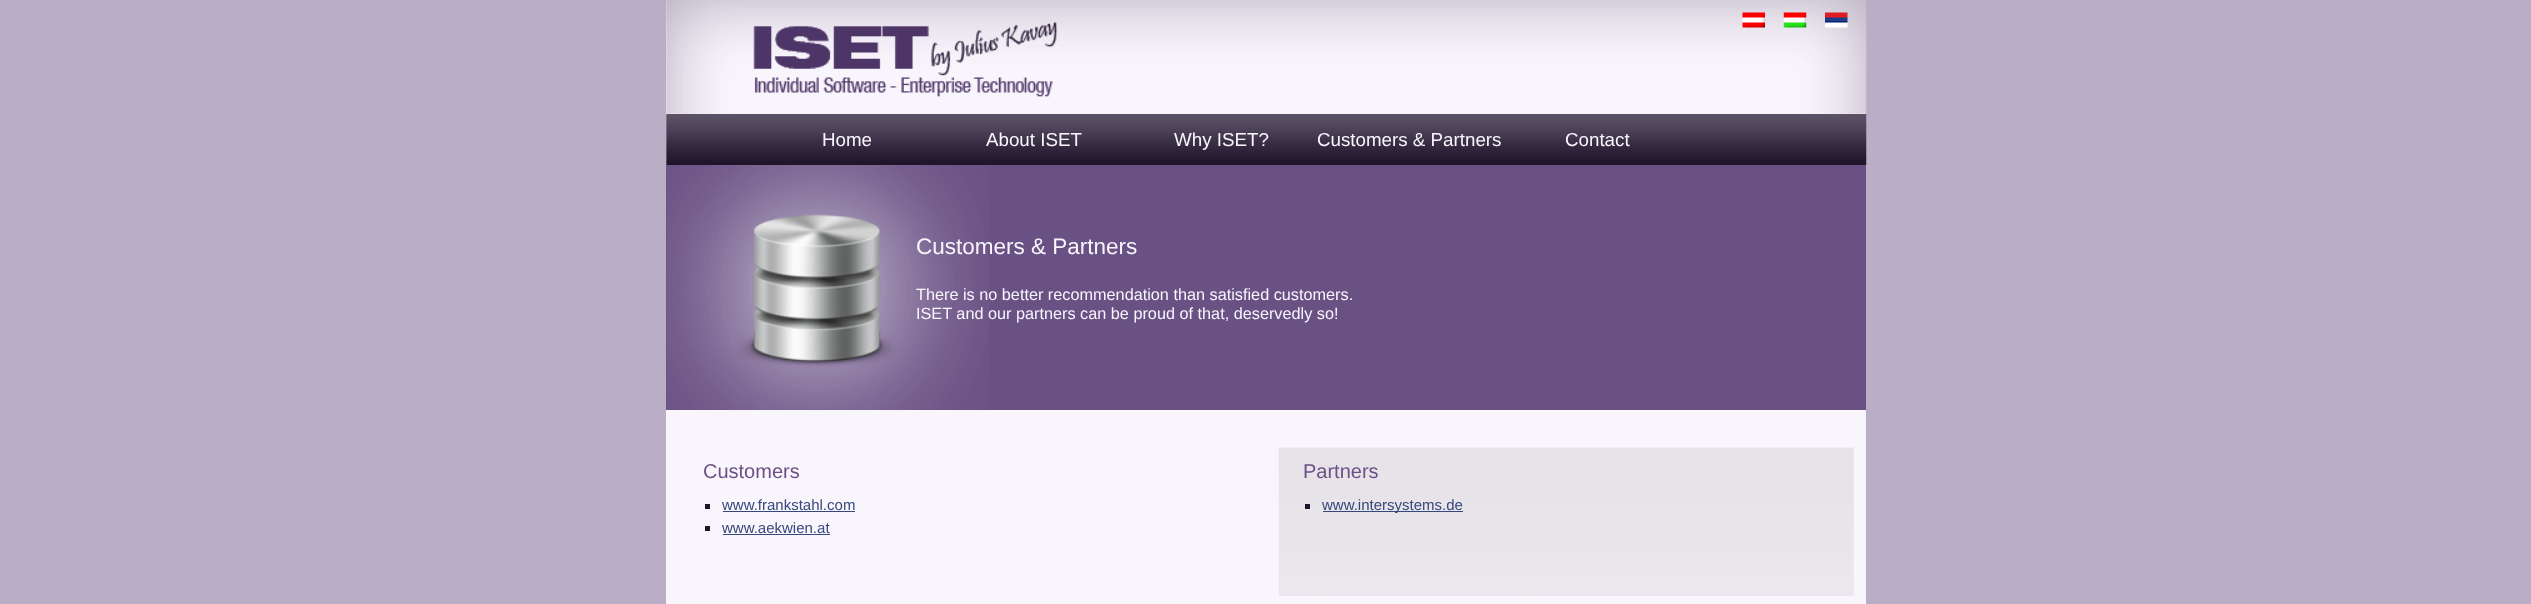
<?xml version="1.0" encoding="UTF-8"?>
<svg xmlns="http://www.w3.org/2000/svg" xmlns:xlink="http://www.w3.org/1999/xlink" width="2531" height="604">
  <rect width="100%" height="100%" fill="#baaec7" />
  <rect x="666" y="114" width="1200" height="490" fill="#f9f5fd" />
  <image x="666" y="113" width="1201" height="52" xlink:href="image6.png" />
  <rect x="666" width="1200" height="114" fill="#f7f2fb" />
  <image x="666" y="0" width="1201" height="114" xlink:href="image1.png" />
  <image x="1742" y="12" width="23" height="16" xlink:href="image2.png" />
  <image x="1783" y="12" width="24" height="16" xlink:href="image3.png" />
  <image x="1825" y="12" width="23" height="16" xlink:href="image4.png" />
  <image x="753" y="22" width="305" height="75" xlink:href="image5.png" />
  <rect x="666" y="165" width="1200" height="245" fill="#6a5184" />
  <image x="666" y="165" width="323" height="245" xlink:href="image7.png" />
  <rect x="705" y="504" width="5" height="5" fill="#20162c" />
  <rect x="723" y="511" width="132" height="1" fill="#36487b" />
  <rect x="705" y="526" width="5" height="5" fill="#20162c" />
  <rect x="723" y="534" width="107" height="1" fill="#36487b" />
  <image x="1278" y="447" width="576" height="149" xlink:href="image8.png" />
  <rect x="1305" y="504" width="5" height="5" fill="#20162c" />
  <rect x="1323" y="511" width="140" height="1" fill="#36487b" />
  <text x="822" y="146" style="font-family: Liberation Sans; font-size: 18.75px; fill: #f9f5fd">Home</text>
  <text x="986" y="146" style="font-family: Liberation Sans; font-size: 18.75px; fill: #f9f5fd">About ISET</text>
  <text x="1174" y="146" style="font-family: Liberation Sans; font-size: 18.75px; fill: #f9f5fd">Why ISET?</text>
  <text x="1317" y="146" style="font-family: Liberation Sans; font-size: 18.75px; fill: #f9f5fd">Customers &amp; Partners</text>
  <text x="1565" y="146" style="font-family: Liberation Sans; font-size: 18.75px; fill: #f9f5fd">Contact</text>
  <text x="916" y="254" style="font-family: Liberation Sans; font-size: 22.5px; fill: #f9f5fd">Customers &amp; Partners</text>
  <text x="916" y="300" style="font-family: Liberation Sans; font-size: 16.25px; fill: #f9f5fd">There is no better recommendation than satisfied customers.</text>
  <text x="916" y="319" style="font-family: Liberation Sans; font-size: 16.25px; fill: #f9f5fd">ISET and our partners can be proud of that, deservedly so!</text>
  <text x="703" y="478" style="font-family: Liberation Sans; font-size: 20px; fill: #6a5184">Customers</text>
  <text x="722" y="510" style="font-family: Liberation Sans; font-size: 15px; fill: #36487b">www.frankstahl.com</text>
  <text x="722" y="533" style="font-family: Liberation Sans; font-size: 15px; fill: #36487b">www.aekwien.at</text>
  <text x="1303" y="478" style="font-family: Liberation Sans; font-size: 20px; fill: #6a5184">Partners</text>
  <text x="1322" y="510" style="font-family: Liberation Sans; font-size: 15px; fill: #36487b">www.intersystems.de</text>
</svg>
